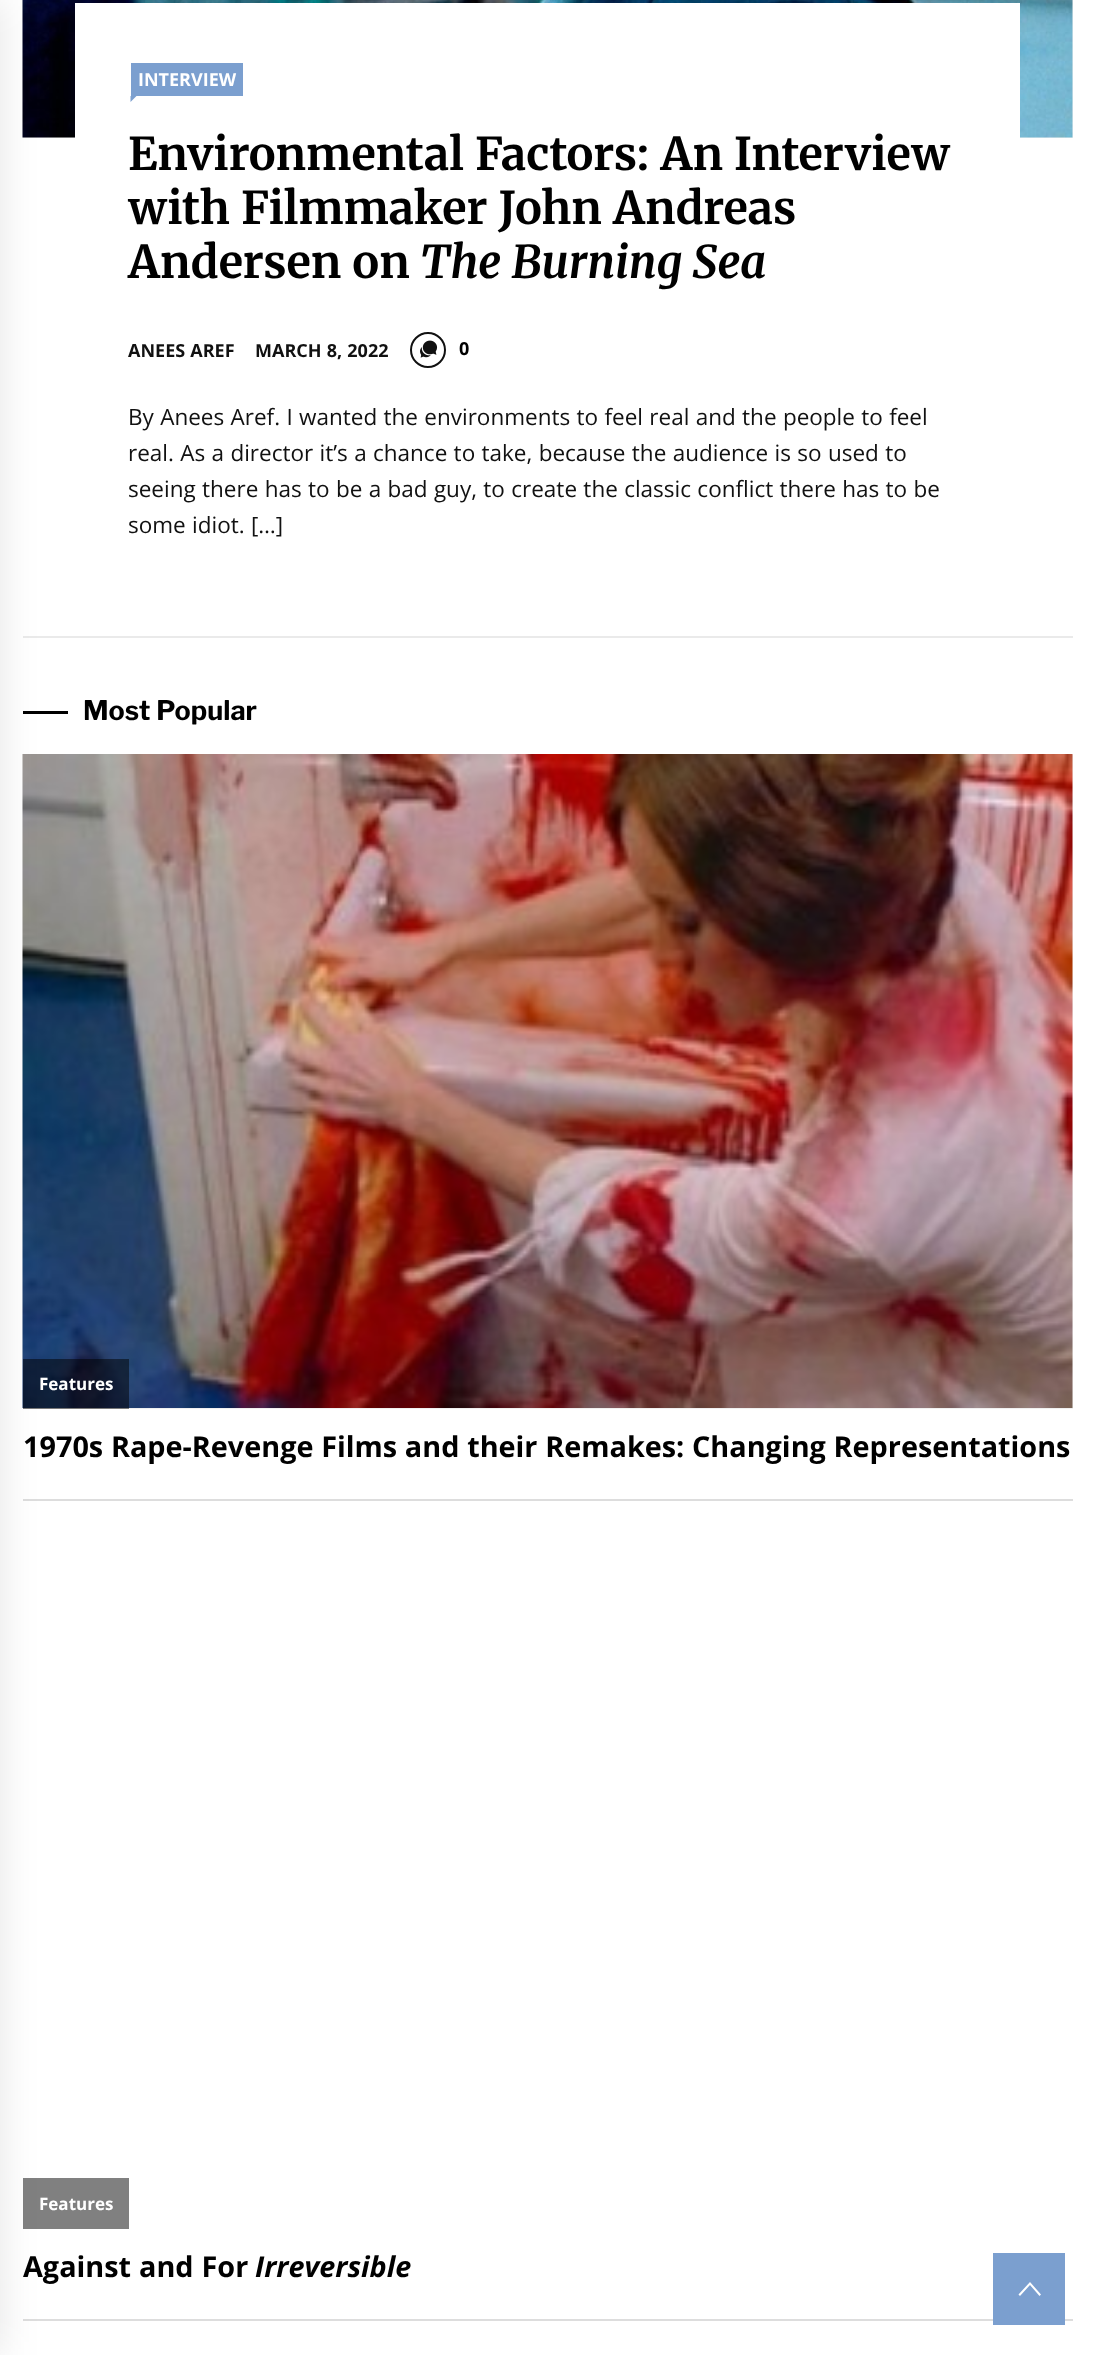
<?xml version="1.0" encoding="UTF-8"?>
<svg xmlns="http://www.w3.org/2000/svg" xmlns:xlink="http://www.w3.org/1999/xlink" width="1095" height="2355">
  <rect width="100%" height="100%" fill="#ffffff" />
  <rect x="23" y="636" width="1050" height="2" fill="#eaeaea" />
  <rect x="23" width="1050" height="138" fill="#f1f1f1" />
  <image x="22" y="0" width="1051" height="138" xlink:href="image1.png" />
  <rect x="23" y="711" width="45" height="3" fill="#000000" />
  <rect x="23" y="1499" width="1050" height="2" fill="#dddddd" />
  <rect x="23" y="755" width="1050" height="654" fill="#f0f0f0" />
  <image x="22" y="754" width="1051" height="654" xlink:href="image3.png" />
  <rect x="23" y="1359" width="106" height="50" fill="#000000" fill-opacity="0.5" />
  <rect x="23" y="2319" width="1050" height="2" fill="#dddddd" />
  <rect x="23" y="2178" width="106" height="51" fill="#808080" />
  <rect x="-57" width="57" height="2355" fill="#000000" fill-opacity="0.1" filter="blur(19px)" />
  <rect x="75" y="3" width="945" height="135" fill="#ffffff" />
  <rect x="131" y="63" width="112" height="33" fill="#7b9fcf" />
  <path d="M 130.5 102 v -6 h 6 z" fill="#7b9fcf" />
  <circle cx="428" cy="350" r="17" fill="none" stroke="#111111" stroke-width="2" />
  <image x="420" y="340" width="18" height="18" xlink:href="image2.png" />
  <rect x="993" y="2253" width="72" height="72" fill="#7b9fcf" />
  <path d="M 1039.5 2296 l -9.5 -11 l -10 11 l -1.5 -1.5 l 11.5 -12.5 l 11 12.5 z" fill="#ffffff" />
  <text x="138" y="86" style="font-family: Open Sans; font-size: 18px; font-weight: bold; fill: #ffffff">INTERVIEW</text>
  <text x="128" y="170" word-spacing="0.5" style="font-family: Merriweather; font-size: 45px; font-weight: bold; fill: #000000">Environmental Factors: An Interview</text>
  <text x="128" y="224" word-spacing="0.5" style="font-family: Merriweather; font-size: 45px; font-weight: bold; fill: #000000">with Filmmaker John Andreas</text>
  <text x="128" y="278" word-spacing="0.5" style="font-family: Merriweather; font-size: 45px; font-weight: bold; fill: #000000">Andersen on</text>
  <text x="420" y="278" word-spacing="0.5" style="font-family: Merriweather; font-size: 45px; font-weight: bold; font-style: italic; fill: #000000">The Burning Sea</text>
  <text x="128" y="357" word-spacing="0.5" style="font-family: Open Sans; font-size: 18px; font-weight: bold; fill: #111111">ANEES AREF</text>
  <text x="255" y="357" word-spacing="0.5" style="font-family: Open Sans; font-size: 18px; font-weight: bold; fill: #111111">MARCH 8, 2022</text>
  <text x="459" y="355" style="font-family: Open Sans; font-size: 18px; font-weight: bold; fill: #000000">0</text>
  <text x="128" y="425" word-spacing="0.5" style="font-family: Open Sans; font-size: 22.5px; fill: #111111">By Anees Aref. I wanted the environments to feel real and the people to feel</text>
  <text x="128" y="461" word-spacing="0.5" style="font-family: Open Sans; font-size: 22.5px; fill: #111111">real. As a director it’s a chance to take, because the audience is so used to</text>
  <text x="128" y="497" word-spacing="0.5" style="font-family: Open Sans; font-size: 22.5px; fill: #111111">seeing there has to be a bad guy, to create the classic conflict there has to be</text>
  <text x="128" y="533" word-spacing="0.5" style="font-family: Open Sans; font-size: 22.5px; fill: #111111">some idiot. […]</text>
  <text x="83" y="720" word-spacing="0.5" style="font-family: Libre Franklin; font-size: 27px; font-weight: bold; fill: #000000">Most Popular</text>
  <text x="39" y="1390" style="font-family: Open Sans; font-size: 17px; font-weight: bold; fill: #ffffff">Features</text>
  <text x="23" y="1457" word-spacing="0.25" style="font-family: Open Sans; font-size: 28.8px; font-weight: bold; fill: #000000">1970s Rape-Revenge Films and their Remakes: Changing Representations</text>
  <text x="39" y="2210" style="font-family: Open Sans; font-size: 17px; font-weight: bold; fill: #ffffff">Features</text>
  <text x="23" y="2277" word-spacing="0.5" style="font-family: Open Sans; font-size: 28.8px; font-weight: bold; fill: #000000">Against and For</text>
  <text x="255" y="2277" style="font-family: Open Sans; font-size: 28.8px; font-weight: bold; font-style: italic; fill: #000000">Irreversible</text>
</svg>
